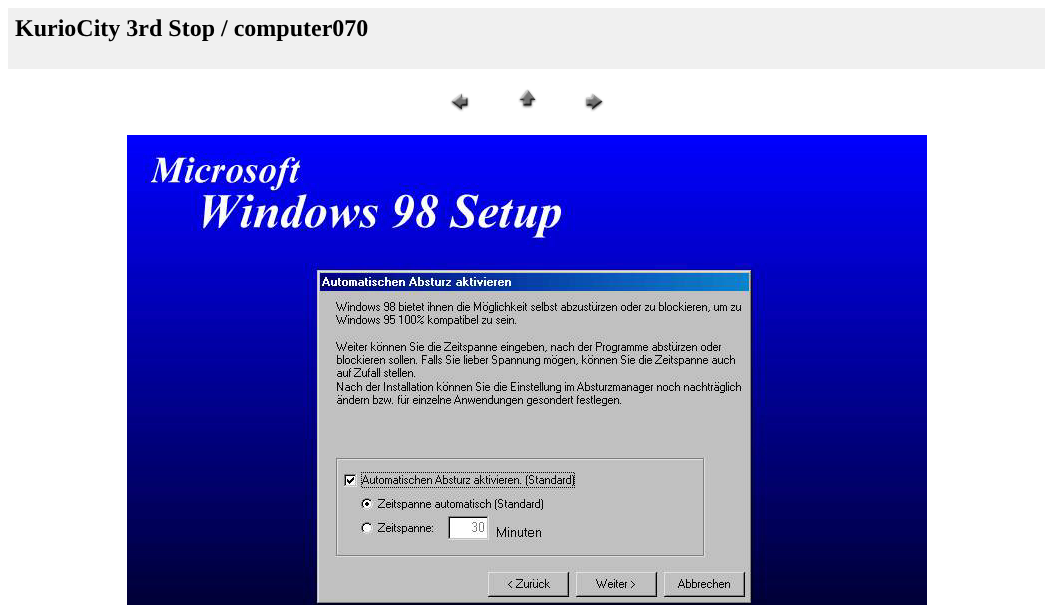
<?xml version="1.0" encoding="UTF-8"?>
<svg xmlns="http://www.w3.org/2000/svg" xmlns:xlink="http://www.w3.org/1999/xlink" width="1053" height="605">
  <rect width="100%" height="100%" fill="#ffffff" />
  <rect x="8" y="8" width="1037" height="61" fill="#f0f0f0" />
  <image x="450" y="93" width="20" height="19" xlink:href="image1.png" />
  <image x="518" y="89" width="19" height="20" xlink:href="image2.png" />
  <image x="584" y="93" width="20" height="19" xlink:href="image3.png" />
  <image x="127" y="135" width="800" height="470" xlink:href="image4.png" />
  <text x="15" y="36" style="font-family: Liberation Serif; font-size: 24px; font-weight: bold; fill: #000000">KurioCity 3rd Stop / computer070</text>
</svg>
